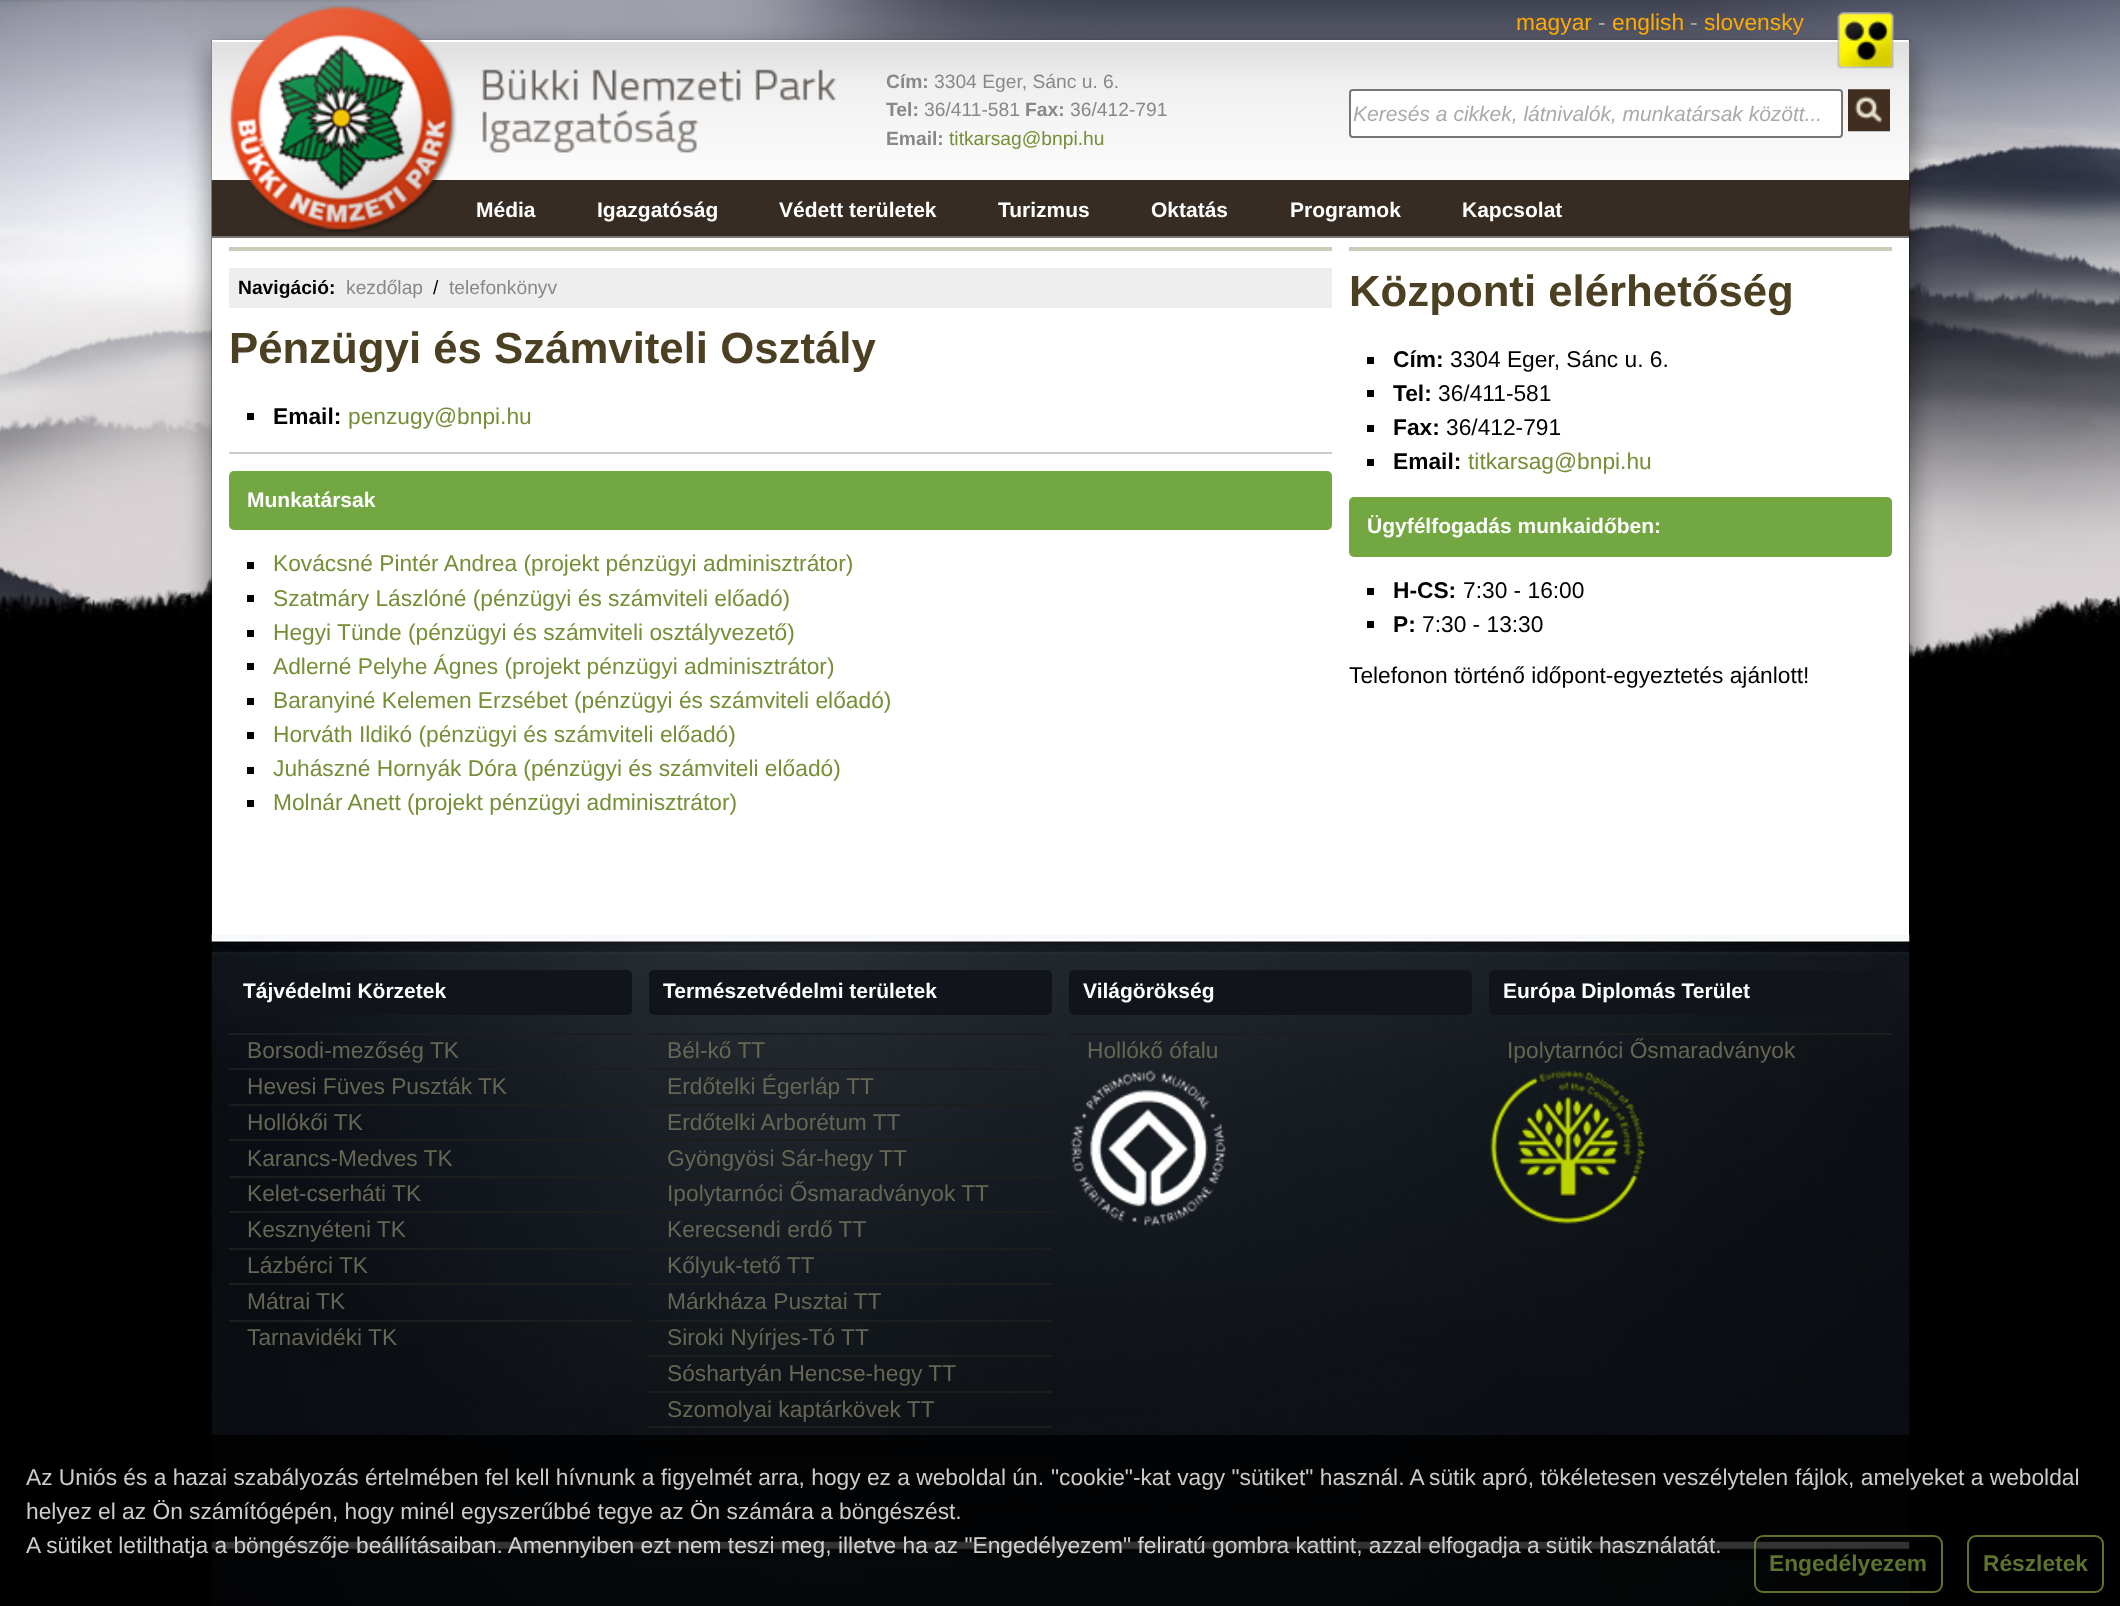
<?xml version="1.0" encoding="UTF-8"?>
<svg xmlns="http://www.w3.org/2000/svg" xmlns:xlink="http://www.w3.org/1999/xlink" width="2120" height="1606">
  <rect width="100%" height="100%" fill="#000000" />
  <image x="0" y="0" width="2120" height="659" xlink:href="image1.png" />
  <rect x="212" y="40" width="1697" height="2" fill="#ffffff" />
  <image x="211" y="42" width="1699" height="139" xlink:href="image2.png" />
  <rect x="212" y="180" width="1697" height="56" fill="#362c23" />
  <image x="229" y="5" width="228" height="228" xlink:href="image3.png" />
  <image x="482" y="69" width="355" height="84" xlink:href="image4.png" />
  <image x="1837" y="12" width="57" height="57" xlink:href="image5.png" />
  <rect x="1350" y="90" width="492" height="47" rx="3" fill="#ffffff" stroke="#767676" stroke-width="2" />
  <image x="1848" y="89" width="42" height="43" xlink:href="image6.png" />
  <rect x="212" y="236" width="1697" height="2" fill="#777777" />
  <rect x="212" y="238" width="1697" height="697" fill="#ffffff" />
  <rect x="229" y="247" width="1103" height="4" fill="#ccccbb" />
  <rect x="229" y="268" width="1103" height="40" fill="#eeeeee" />
  <rect x="247" y="413" width="7" height="7" fill="#000000" />
  <rect x="229" y="452" width="1103" height="2" fill="#cccccc" />
  <rect x="229" y="471" width="1103" height="59" rx="5" fill="#72a741" />
  <rect x="247" y="562" width="7" height="7" fill="#000000" />
  <rect x="247" y="595" width="7" height="7" fill="#000000" />
  <rect x="247" y="630" width="7" height="7" fill="#000000" />
  <rect x="247" y="663" width="7" height="7" fill="#000000" />
  <rect x="247" y="698" width="7" height="7" fill="#000000" />
  <rect x="247" y="732" width="7" height="7" fill="#000000" />
  <rect x="247" y="767" width="7" height="7" fill="#000000" />
  <rect x="247" y="800" width="7" height="7" fill="#000000" />
  <rect x="1349" y="247" width="543" height="4" fill="#ccccbb" />
  <rect x="1367" y="357" width="7" height="7" fill="#000000" />
  <rect x="1367" y="390" width="7" height="7" fill="#000000" />
  <rect x="1367" y="425" width="7" height="7" fill="#000000" />
  <rect x="1367" y="459" width="7" height="7" fill="#000000" />
  <rect x="1349" y="497" width="543" height="60" rx="5" fill="#72a741" />
  <rect x="1367" y="588" width="7" height="7" fill="#000000" />
  <rect x="1367" y="621" width="7" height="7" fill="#000000" />
  <rect x="212" y="1541" width="1697" height="1" fill="#090d10" />
  <image x="211" y="934" width="1699" height="607" xlink:href="image7.png" />
  <rect x="229" y="970" width="403" height="45" rx="5" fill="#11141b" />
  <rect x="229" y="1033" width="403" height="2" fill="#1d1d1d" />
  <rect x="229" y="1068" width="403" height="2" fill="#1d1d1d" />
  <rect x="229" y="1104" width="403" height="2" fill="#1d1d1d" />
  <rect x="229" y="1139" width="403" height="2" fill="#1d1d1d" />
  <rect x="229" y="1176" width="403" height="2" fill="#1d1d1d" />
  <rect x="229" y="1211" width="403" height="2" fill="#1d1d1d" />
  <rect x="229" y="1248" width="403" height="2" fill="#1d1d1d" />
  <rect x="229" y="1283" width="403" height="2" fill="#1d1d1d" />
  <rect x="229" y="1320" width="403" height="2" fill="#1d1d1d" />
  <rect x="649" y="970" width="403" height="45" rx="5" fill="#11141b" />
  <rect x="649" y="1033" width="403" height="2" fill="#1d1d1d" />
  <rect x="649" y="1068" width="403" height="2" fill="#1d1d1d" />
  <rect x="649" y="1104" width="403" height="2" fill="#1d1d1d" />
  <rect x="649" y="1139" width="403" height="2" fill="#1d1d1d" />
  <rect x="649" y="1176" width="403" height="2" fill="#1d1d1d" />
  <rect x="649" y="1211" width="403" height="2" fill="#1d1d1d" />
  <rect x="649" y="1248" width="403" height="2" fill="#1d1d1d" />
  <rect x="649" y="1283" width="403" height="2" fill="#1d1d1d" />
  <rect x="649" y="1320" width="403" height="2" fill="#1d1d1d" />
  <rect x="649" y="1355" width="403" height="2" fill="#1d1d1d" />
  <rect x="649" y="1391" width="403" height="2" fill="#1d1d1d" />
  <rect x="649" y="1426" width="403" height="2" fill="#1d1d1d" />
  <rect x="649" y="1463" width="403" height="2" fill="#1d1d1d" />
  <rect x="1069" y="970" width="403" height="45" rx="5" fill="#11141b" />
  <rect x="1069" y="1033" width="403" height="2" fill="#1d1d1d" />
  <image x="1070" y="1070" width="156" height="156" xlink:href="image8.png" />
  <rect x="1489" y="970" width="403" height="45" rx="5" fill="#11141b" />
  <rect x="1489" y="1033" width="403" height="2" fill="#1d1d1d" />
  <image x="1490" y="1070" width="156" height="154" xlink:href="image9.png" />
  <image x="211" y="1541" width="1699" height="65" xlink:href="image10.png" />
  <rect x="211" y="1435" width="1699" height="171" fill="#000000" fill-opacity="0.8" />
  <rect x="1755" y="1536" width="187" height="56" rx="8" fill="none" stroke="#758f37" stroke-opacity="0.8" stroke-width="2" />
  <rect x="1968" y="1536" width="135" height="56" rx="8" fill="none" stroke="#5e722c" stroke-width="2" />
  <text x="1516" y="30" style="font-family: Liberation Sans; font-size: 22.75px; fill: #ffaa00">magyar</text>
  <text x="1598" y="30" style="font-family: Liberation Sans; font-size: 22.75px; fill: #aaaaaa">-</text>
  <text x="1612" y="30" style="font-family: Liberation Sans; font-size: 22.75px; fill: #ffaa00">english</text>
  <text x="1690" y="30" style="font-family: Liberation Sans; font-size: 22.75px; fill: #aaaaaa">-</text>
  <text x="1704" y="30" style="font-family: Liberation Sans; font-size: 22.75px; fill: #ffaa00">slovensky</text>
  <text x="886" y="88" style="font-family: Liberation Sans; font-size: 19.25px; font-weight: bold; fill: #888888">Cím:</text>
  <text x="934" y="88" style="font-family: Liberation Sans; font-size: 19.25px; fill: #888888">3304 Eger, Sánc u. 6.</text>
  <text x="886" y="116" style="font-family: Liberation Sans; font-size: 19.25px; font-weight: bold; fill: #888888">Tel:</text>
  <text x="924" y="116" style="font-family: Liberation Sans; font-size: 19.25px; fill: #888888">36/411-581</text>
  <text x="1025" y="116" style="font-family: Liberation Sans; font-size: 19.25px; font-weight: bold; fill: #888888">Fax:</text>
  <text x="1070" y="116" style="font-family: Liberation Sans; font-size: 19.25px; fill: #888888">36/412-791</text>
  <text x="886" y="145" style="font-family: Liberation Sans; font-size: 19.25px; font-weight: bold; fill: #888888">Email:</text>
  <text x="949" y="145" style="font-family: Liberation Sans; font-size: 19.25px; fill: #758f37">titkarsag@bnpi.hu</text>
  <text x="1353" y="121" style="font-family: Liberation Sans; font-size: 21px; font-style: italic; fill: #aaaaaa">Keresés a cikkek, látnivalók, munkatársak között...</text>
  <text x="476" y="217" style="font-family: Liberation Sans; font-size: 21px; font-weight: bold; fill: #ffffff">Média</text>
  <text x="597" y="217" style="font-family: Liberation Sans; font-size: 21px; font-weight: bold; fill: #ffffff">Igazgatóság</text>
  <text x="779" y="217" style="font-family: Liberation Sans; font-size: 21px; font-weight: bold; fill: #ffffff">Védett területek</text>
  <text x="998" y="217" style="font-family: Liberation Sans; font-size: 21px; font-weight: bold; fill: #ffffff">Turizmus</text>
  <text x="1151" y="217" style="font-family: Liberation Sans; font-size: 21px; font-weight: bold; fill: #ffffff">Oktatás</text>
  <text x="1290" y="217" style="font-family: Liberation Sans; font-size: 21px; font-weight: bold; fill: #ffffff">Programok</text>
  <text x="1462" y="217" style="font-family: Liberation Sans; font-size: 21px; font-weight: bold; fill: #ffffff">Kapcsolat</text>
  <text x="238" y="294" style="font-family: Liberation Sans; font-size: 19.25px; font-weight: bold; fill: #000000">Navigáció:</text>
  <text x="346" y="294" style="font-family: Liberation Sans; font-size: 19.25px; fill: #888888">kezdőlap</text>
  <text x="433" y="294" style="font-family: Liberation Sans; font-size: 19.25px; fill: #000000">/</text>
  <text x="449" y="294" style="font-family: Liberation Sans; font-size: 19.25px; fill: #888888">telefonkönyv</text>
  <text x="229" y="363" style="font-family: Liberation Sans; font-size: 43.75px; font-weight: bold; fill: #4c4023">Pénzügyi és Számviteli Osztály</text>
  <text x="273" y="424" style="font-family: Liberation Sans; font-size: 22.75px; font-weight: bold; fill: #000000">Email:</text>
  <text x="348" y="424" style="font-family: Liberation Sans; font-size: 22.75px; fill: #758f37">penzugy@bnpi.hu</text>
  <text x="247" y="507" style="font-family: Liberation Sans; font-size: 21px; font-weight: bold; fill: #ffffff">Munkatársak</text>
  <text x="273" y="571" style="font-family: Liberation Sans; font-size: 22.75px; fill: #758f37">Kovácsné Pintér Andrea (projekt pénzügyi adminisztrátor)</text>
  <text x="273" y="606" style="font-family: Liberation Sans; font-size: 22.75px; fill: #758f37">Szatmáry Lászlóné (pénzügyi és számviteli előadó)</text>
  <text x="273" y="640" style="font-family: Liberation Sans; font-size: 22.75px; fill: #758f37">Hegyi Tünde (pénzügyi és számviteli osztályvezető)</text>
  <text x="273" y="674" style="font-family: Liberation Sans; font-size: 22.75px; fill: #758f37">Adlerné Pelyhe Ágnes (projekt pénzügyi adminisztrátor)</text>
  <text x="273" y="708" style="font-family: Liberation Sans; font-size: 22.75px; fill: #758f37">Baranyiné Kelemen Erzsébet (pénzügyi és számviteli előadó)</text>
  <text x="273" y="742" style="font-family: Liberation Sans; font-size: 22.75px; fill: #758f37">Horváth Ildikó (pénzügyi és számviteli előadó)</text>
  <text x="273" y="776" style="font-family: Liberation Sans; font-size: 22.75px; fill: #758f37">Juhászné Hornyák Dóra (pénzügyi és számviteli előadó)</text>
  <text x="273" y="810" style="font-family: Liberation Sans; font-size: 22.75px; fill: #758f37">Molnár Anett (projekt pénzügyi adminisztrátor)</text>
  <text x="1349" y="306" style="font-family: Liberation Sans; font-size: 43.75px; font-weight: bold; fill: #4c4023">Központi elérhetőség</text>
  <text x="1393" y="367" style="font-family: Liberation Sans; font-size: 22.75px; font-weight: bold; fill: #000000">Cím:</text>
  <text x="1450" y="367" style="font-family: Liberation Sans; font-size: 22.75px; fill: #000000">3304 Eger, Sánc u. 6.</text>
  <text x="1393" y="401" style="font-family: Liberation Sans; font-size: 22.75px; font-weight: bold; fill: #000000">Tel:</text>
  <text x="1438" y="401" style="font-family: Liberation Sans; font-size: 22.75px; fill: #000000">36/411-581</text>
  <text x="1393" y="435" style="font-family: Liberation Sans; font-size: 22.75px; font-weight: bold; fill: #000000">Fax:</text>
  <text x="1446" y="435" style="font-family: Liberation Sans; font-size: 22.75px; fill: #000000">36/412-791</text>
  <text x="1393" y="469" style="font-family: Liberation Sans; font-size: 22.75px; font-weight: bold; fill: #000000">Email:</text>
  <text x="1468" y="469" style="font-family: Liberation Sans; font-size: 22.75px; fill: #758f37">titkarsag@bnpi.hu</text>
  <text x="1367" y="533" style="font-family: Liberation Sans; font-size: 21px; font-weight: bold; fill: #ffffff">Ügyfélfogadás munkaidőben:</text>
  <text x="1393" y="598" style="font-family: Liberation Sans; font-size: 22.75px; font-weight: bold; fill: #000000">H-CS:</text>
  <text x="1463" y="598" style="font-family: Liberation Sans; font-size: 22.75px; fill: #000000">7:30 - 16:00</text>
  <text x="1393" y="632" style="font-family: Liberation Sans; font-size: 22.75px; font-weight: bold; fill: #000000">P:</text>
  <text x="1422" y="632" style="font-family: Liberation Sans; font-size: 22.75px; fill: #000000">7:30 - 13:30</text>
  <text x="1349" y="683" style="font-family: Liberation Sans; font-size: 22.75px; fill: #000000">Telefonon történő időpont-egyeztetés ajánlott!</text>
  <text x="243" y="998" style="font-family: Liberation Sans; font-size: 21px; font-weight: bold; fill: #ffffff">Tájvédelmi Körzetek</text>
  <text x="247" y="1058" style="font-family: Liberation Sans; font-size: 22.75px; fill: #666655">Borsodi-mezőség TK</text>
  <text x="247" y="1094" style="font-family: Liberation Sans; font-size: 22.75px; fill: #666655">Hevesi Füves Puszták TK</text>
  <text x="247" y="1130" style="font-family: Liberation Sans; font-size: 22.75px; fill: #666655">Hollókői TK</text>
  <text x="247" y="1166" style="font-family: Liberation Sans; font-size: 22.75px; fill: #666655">Karancs-Medves TK</text>
  <text x="247" y="1201" style="font-family: Liberation Sans; font-size: 22.75px; fill: #666655">Kelet-cserháti TK</text>
  <text x="247" y="1237" style="font-family: Liberation Sans; font-size: 22.75px; fill: #666655">Kesznyéteni TK</text>
  <text x="247" y="1273" style="font-family: Liberation Sans; font-size: 22.75px; fill: #666655">Lázbérci TK</text>
  <text x="247" y="1309" style="font-family: Liberation Sans; font-size: 22.75px; fill: #666655">Mátrai TK</text>
  <text x="247" y="1345" style="font-family: Liberation Sans; font-size: 22.75px; fill: #666655">Tarnavidéki TK</text>
  <text x="663" y="998" style="font-family: Liberation Sans; font-size: 21px; font-weight: bold; fill: #ffffff">Természetvédelmi területek</text>
  <text x="667" y="1058" style="font-family: Liberation Sans; font-size: 22.75px; fill: #666655">Bél-kő TT</text>
  <text x="667" y="1094" style="font-family: Liberation Sans; font-size: 22.75px; fill: #666655">Erdőtelki Égerláp TT</text>
  <text x="667" y="1130" style="font-family: Liberation Sans; font-size: 22.75px; fill: #666655">Erdőtelki Arborétum TT</text>
  <text x="667" y="1166" style="font-family: Liberation Sans; font-size: 22.75px; fill: #666655">Gyöngyösi Sár-hegy TT</text>
  <text x="667" y="1201" style="font-family: Liberation Sans; font-size: 22.75px; fill: #666655">Ipolytarnóci Ősmaradványok TT</text>
  <text x="667" y="1237" style="font-family: Liberation Sans; font-size: 22.75px; fill: #666655">Kerecsendi erdő TT</text>
  <text x="667" y="1273" style="font-family: Liberation Sans; font-size: 22.75px; fill: #666655">Kőlyuk-tető TT</text>
  <text x="667" y="1309" style="font-family: Liberation Sans; font-size: 22.75px; fill: #666655">Márkháza Pusztai TT</text>
  <text x="667" y="1345" style="font-family: Liberation Sans; font-size: 22.75px; fill: #666655">Siroki Nyírjes-Tó TT</text>
  <text x="667" y="1381" style="font-family: Liberation Sans; font-size: 22.75px; fill: #666655">Sóshartyán Hencse-hegy TT</text>
  <text x="667" y="1417" style="font-family: Liberation Sans; font-size: 22.75px; fill: #666655">Szomolyai kaptárkövek TT</text>
  <text x="1083" y="998" style="font-family: Liberation Sans; font-size: 21px; font-weight: bold; fill: #ffffff">Világörökség</text>
  <text x="1087" y="1058" style="font-family: Liberation Sans; font-size: 22.75px; fill: #666655">Hollókő ófalu</text>
  <text x="1503" y="998" style="font-family: Liberation Sans; font-size: 21px; font-weight: bold; fill: #ffffff">Európa Diplomás Terület</text>
  <text x="1507" y="1058" style="font-family: Liberation Sans; font-size: 22.75px; fill: #666655">Ipolytarnóci Ősmaradványok</text>
  <text x="26" y="1485" style="font-family: Liberation Sans; font-size: 22.75px; fill: #cccccc">Az Uniós és a hazai szabályozás értelmében</text>
  <text x="485" y="1485" style="font-family: Liberation Sans; font-size: 22.75px; fill: #cccccc">fel kell hívnunk a figyelmét arra, hogy ez a weboldal ún.</text>
  <text x="1051" y="1485" style="font-family: Liberation Sans; font-size: 22.75px; fill: #cccccc">"cookie"-kat vagy "sütiket" használ. A</text>
  <text x="1429" y="1485" style="font-family: Liberation Sans; font-size: 22.75px; fill: #cccccc">sütik apró, tökéletesen veszélytelen</text>
  <text x="1795" y="1485" style="font-family: Liberation Sans; font-size: 22.75px; fill: #cccccc">fájlok, amelyeket a weboldal</text>
  <text x="26" y="1519" style="font-family: Liberation Sans; font-size: 22.75px; fill: #cccccc">helyez el az Ön</text>
  <text x="189" y="1519" style="font-family: Liberation Sans; font-size: 22.75px; fill: #cccccc">számítógépén, hogy minél</text>
  <text x="461" y="1519" style="font-family: Liberation Sans; font-size: 22.75px; fill: #cccccc">egyszerűbbé tegye az Ön számára a</text>
  <text x="839" y="1519" style="font-family: Liberation Sans; font-size: 22.75px; fill: #cccccc">böngészést.</text>
  <text x="26" y="1553" style="font-family: Liberation Sans; font-size: 22.75px; fill: #cccccc">A sütiket letilthatja a böngészője</text>
  <text x="356" y="1553" style="font-family: Liberation Sans; font-size: 22.75px; fill: #d1d2d2">beállításaiban. Amennyiben ezt nem teszi meg,</text>
  <text x="838" y="1553" style="font-family: Liberation Sans; font-size: 22.75px; fill: #d1d2d2">illetve ha az "Engedélyezem" feliratú</text>
  <text x="1212" y="1553" style="font-family: Liberation Sans; font-size: 22.75px; fill: #cccccc">gombra kattint, azzal elfogadja a sütik használatát.</text>
  <text x="1769" y="1571" style="font-family: Liberation Sans; font-size: 22.75px; font-weight: bold; fill: #5e732d">Engedélyezem</text>
  <text x="1983" y="1571" style="font-family: Liberation Sans; font-size: 22.75px; font-weight: bold; fill: #5e732d">Részletek</text>
</svg>
